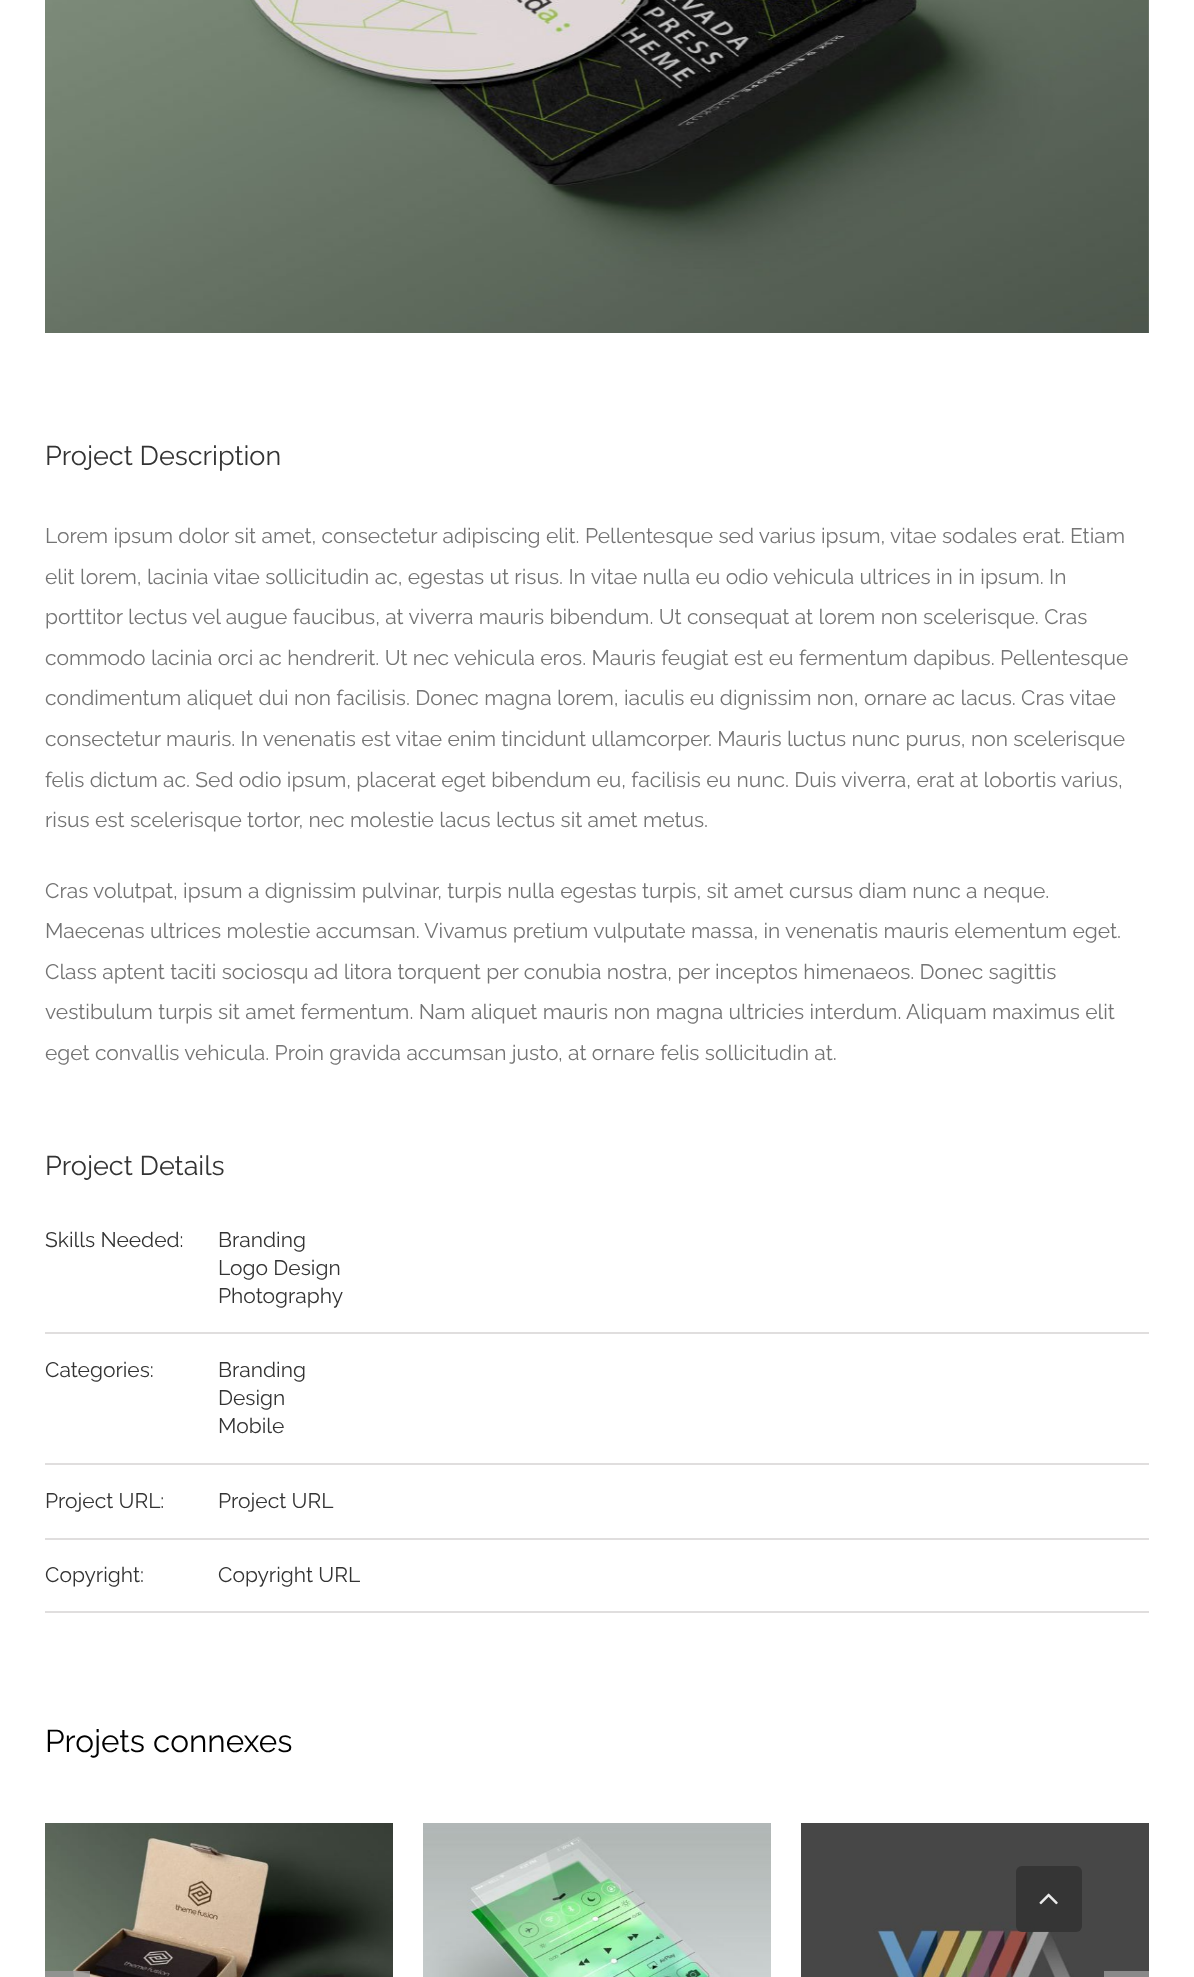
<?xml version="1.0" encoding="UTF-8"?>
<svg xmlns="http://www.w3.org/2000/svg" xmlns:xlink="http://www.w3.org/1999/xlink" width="1194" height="1977">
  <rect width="100%" height="100%" fill="#ffffff" />
  <image x="45" y="0" width="1104" height="333" xlink:href="image1.png" />
  <rect x="45" y="1332" width="1104" height="2" fill="#e0dede" />
  <rect x="45" y="1463" width="1104" height="2" fill="#e0dede" />
  <rect x="45" y="1538" width="1104" height="2" fill="#e0dede" />
  <rect x="45" y="1611" width="1104" height="2" fill="#e0dede" />
  <image x="45" y="1823" width="348" height="154" xlink:href="image2.png" />
  <image x="423" y="1823" width="348" height="154" xlink:href="image3.png" />
  <image x="801" y="1823" width="348" height="154" xlink:href="image4.png" />
  <rect x="45" y="1971" width="45" height="6" fill="#999999" fill-opacity="0.8" />
  <rect x="1104" y="1971" width="45" height="6" fill="#898989" />
  <rect x="1016" y="1866" width="66" height="66" rx="6" fill="#333333" fill-opacity="0.9" />
  <image x="1039" y="1893" width="19" height="12" xlink:href="image5.png" />
  <text x="45" y="465" style="font-family: Raleway; font-size: 27px; fill: #333333">Project Description</text>
  <text x="45" y="543" style="font-family: Raleway; font-size: 21px; fill: #747474">Lorem ipsum dolor sit amet, consectetur adipiscing elit. Pellentesque sed varius ipsum, vitae sodales erat. Etiam</text>
  <text x="45" y="584" style="font-family: Raleway; font-size: 21px; fill: #747474">elit lorem, lacinia vitae sollicitudin ac, egestas ut risus. In vitae nulla eu odio vehicula ultrices in in ipsum. In</text>
  <text x="45" y="624" style="font-family: Raleway; font-size: 21px; fill: #747474">porttitor lectus vel augue faucibus, at viverra mauris bibendum. Ut consequat at lorem non scelerisque. Cras</text>
  <text x="45" y="665" style="font-family: Raleway; font-size: 21px; fill: #747474">commodo lacinia orci ac hendrerit. Ut nec vehicula eros. Mauris feugiat est eu fermentum dapibus. Pellentesque</text>
  <text x="45" y="705" style="font-family: Raleway; font-size: 21px; fill: #747474">condimentum aliquet dui non facilisis. Donec magna lorem, iaculis eu dignissim non, ornare ac lacus. Cras vitae</text>
  <text x="45" y="746" style="font-family: Raleway; font-size: 21px; fill: #747474">consectetur mauris. In venenatis est vitae enim tincidunt ullamcorper. Mauris luctus nunc purus, non scelerisque</text>
  <text x="45" y="787" style="font-family: Raleway; font-size: 21px; fill: #747474">felis dictum ac. Sed odio ipsum, placerat eget bibendum eu, facilisis eu nunc. Duis viverra, erat at lobortis varius,</text>
  <text x="45" y="827" style="font-family: Raleway; font-size: 21px; fill: #747474">risus est scelerisque tortor, nec molestie lacus lectus sit amet metus.</text>
  <text x="45" y="898" style="font-family: Raleway; font-size: 21px; fill: #747474">Cras volutpat, ipsum a dignissim pulvinar, turpis nulla egestas turpis, sit amet cursus diam nunc a neque.</text>
  <text x="45" y="938" style="font-family: Raleway; font-size: 21px; fill: #747474">Maecenas ultrices molestie accumsan. Vivamus pretium vulputate massa, in venenatis mauris elementum eget.</text>
  <text x="45" y="979" style="font-family: Raleway; font-size: 21px; fill: #747474">Class aptent taciti sociosqu ad litora torquent per conubia nostra, per inceptos himenaeos. Donec sagittis</text>
  <text x="45" y="1019" style="font-family: Raleway; font-size: 21px; fill: #747474">vestibulum turpis sit amet fermentum. Nam aliquet mauris non magna ultricies interdum. Aliquam maximus elit</text>
  <text x="45" y="1060" style="font-family: Raleway; font-size: 21px; fill: #747474">eget convallis vehicula. Proin gravida accumsan justo, at ornare felis sollicitudin at.</text>
  <text x="45" y="1175" style="font-family: Raleway; font-size: 27px; fill: #333333">Project Details</text>
  <text x="45" y="1247" style="font-family: Raleway; font-size: 21px; fill: #333333">Skills Needed:</text>
  <text x="218" y="1247" style="font-family: Raleway; font-size: 21px; fill: #333333">Branding</text>
  <text x="218" y="1275" style="font-family: Raleway; font-size: 21px; fill: #333333">Logo Design</text>
  <text x="218" y="1303" style="font-family: Raleway; font-size: 21px; fill: #333333">Photography</text>
  <text x="45" y="1377" style="font-family: Raleway; font-size: 21px; fill: #333333">Categories:</text>
  <text x="218" y="1377" style="font-family: Raleway; font-size: 21px; fill: #333333">Branding</text>
  <text x="218" y="1405" style="font-family: Raleway; font-size: 21px; fill: #333333">Design</text>
  <text x="218" y="1433" style="font-family: Raleway; font-size: 21px; fill: #333333">Mobile</text>
  <text x="45" y="1508" style="font-family: Raleway; font-size: 21px; fill: #333333">Project URL:</text>
  <text x="218" y="1508" style="font-family: Raleway; font-size: 21px; fill: #333333">Project URL</text>
  <text x="45" y="1582" style="font-family: Raleway; font-size: 21px; fill: #333333">Copyright:</text>
  <text x="218" y="1582" style="font-family: Raleway; font-size: 21px; fill: #333333">Copyright URL</text>
  <text x="45" y="1752" style="font-family: Raleway; font-size: 31.5px; fill: #000000">Projets connexes</text>
</svg>
